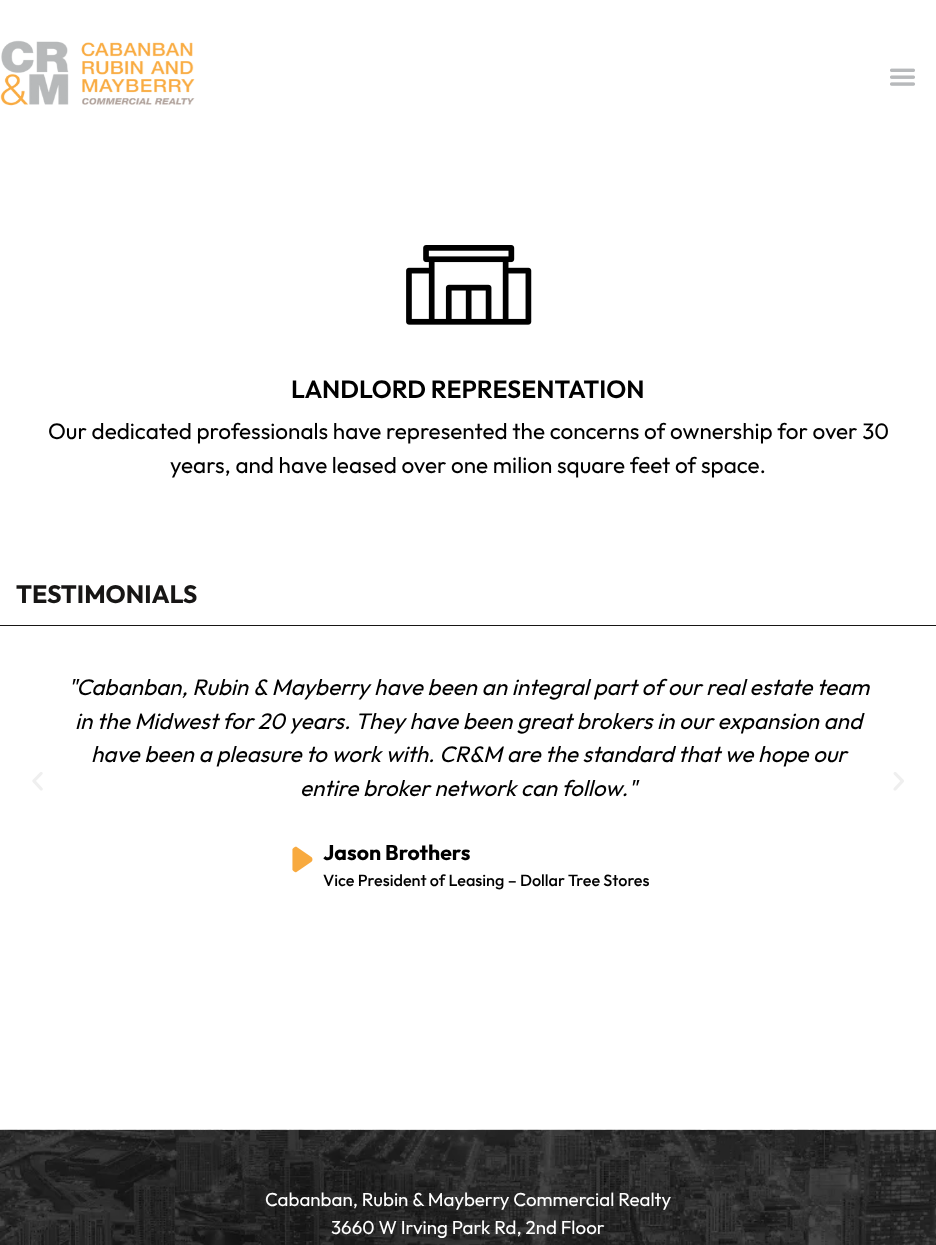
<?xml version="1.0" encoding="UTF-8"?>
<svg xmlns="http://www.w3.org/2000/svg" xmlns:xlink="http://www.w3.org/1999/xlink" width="936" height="1245">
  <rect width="100%" height="100%" fill="#ffffff" />
  <image x="0" y="40" width="195" height="66" xlink:href="image1.png" />
  <image x="890" y="68" width="25" height="18" xlink:href="image2.png" />
  <image x="406" y="245" width="126" height="80" xlink:href="image3.png" />
  <rect y="625" width="936" height="1" fill="#171615" />
  <image x="32" y="772" width="11" height="19" xlink:href="image4.png" />
  <image x="292" y="846" width="21" height="27" xlink:href="image5.png" />
  <image x="893" y="772" width="11" height="19" xlink:href="image6.png" />
  <image x="0" y="1129" width="936" height="116" xlink:href="image7.png" />
  <text x="291" y="398" style="font-family: Outfit; font-size: 25px; font-weight: 600; fill: #000000">LANDLORD REPRESENTATION</text>
  <text x="48" y="439" style="font-family: Outfit; font-size: 22.5px; fill: #000000">Our dedicated professionals have represented the concerns of ownership for over 30</text>
  <text x="170" y="473" style="font-family: Outfit; font-size: 22.5px; fill: #000000">years, and have leased over one milion square feet of space.</text>
  <text x="16" y="603" style="font-family: Outfit; font-size: 25px; font-weight: bold; fill: #171615">TESTIMONIALS</text>
  <text x="68" y="695" style="font-family: Outfit; font-size: 22.5px; font-style: italic; fill: #000000">"Cabanban, Rubin &amp; Mayberry have been an integral part of our real estate team</text>
  <text x="75" y="729" style="font-family: Outfit; font-size: 22.5px; font-style: italic; fill: #000000">in the Midwest for 20 years.</text>
  <text x="355" y="729" style="font-family: Outfit; font-size: 22.5px; font-style: italic; fill: #000000">They have been great brokers in our expansion and</text>
  <text x="91" y="762" style="font-family: Outfit; font-size: 22.5px; font-style: italic; fill: #000000">have been a pleasure to work with. CR&amp;M are the standard that we hope our</text>
  <text x="300" y="796" style="font-family: Outfit; font-size: 22.5px; font-style: italic; fill: #000000">entire broker network can follow."</text>
  <text x="323" y="860" style="font-family: Outfit; font-size: 21.25px; font-weight: bold; fill: #000000">Jason Brothers</text>
  <text x="323" y="886" style="font-family: Outfit; font-size: 16.25px; font-weight: 500; fill: #000000">Vice President of Leasing – Dollar Tree Stores</text>
  <text x="265" y="1206" style="font-family: Outfit; font-size: 18.75px; fill: #ffffff">Cabanban, Rubin &amp; Mayberry Commercial Realty</text>
  <text x="331" y="1234" style="font-family: Outfit; font-size: 18.75px; fill: #ffffff">3660 W Irving Park Rd, 2nd Floor</text>
</svg>
